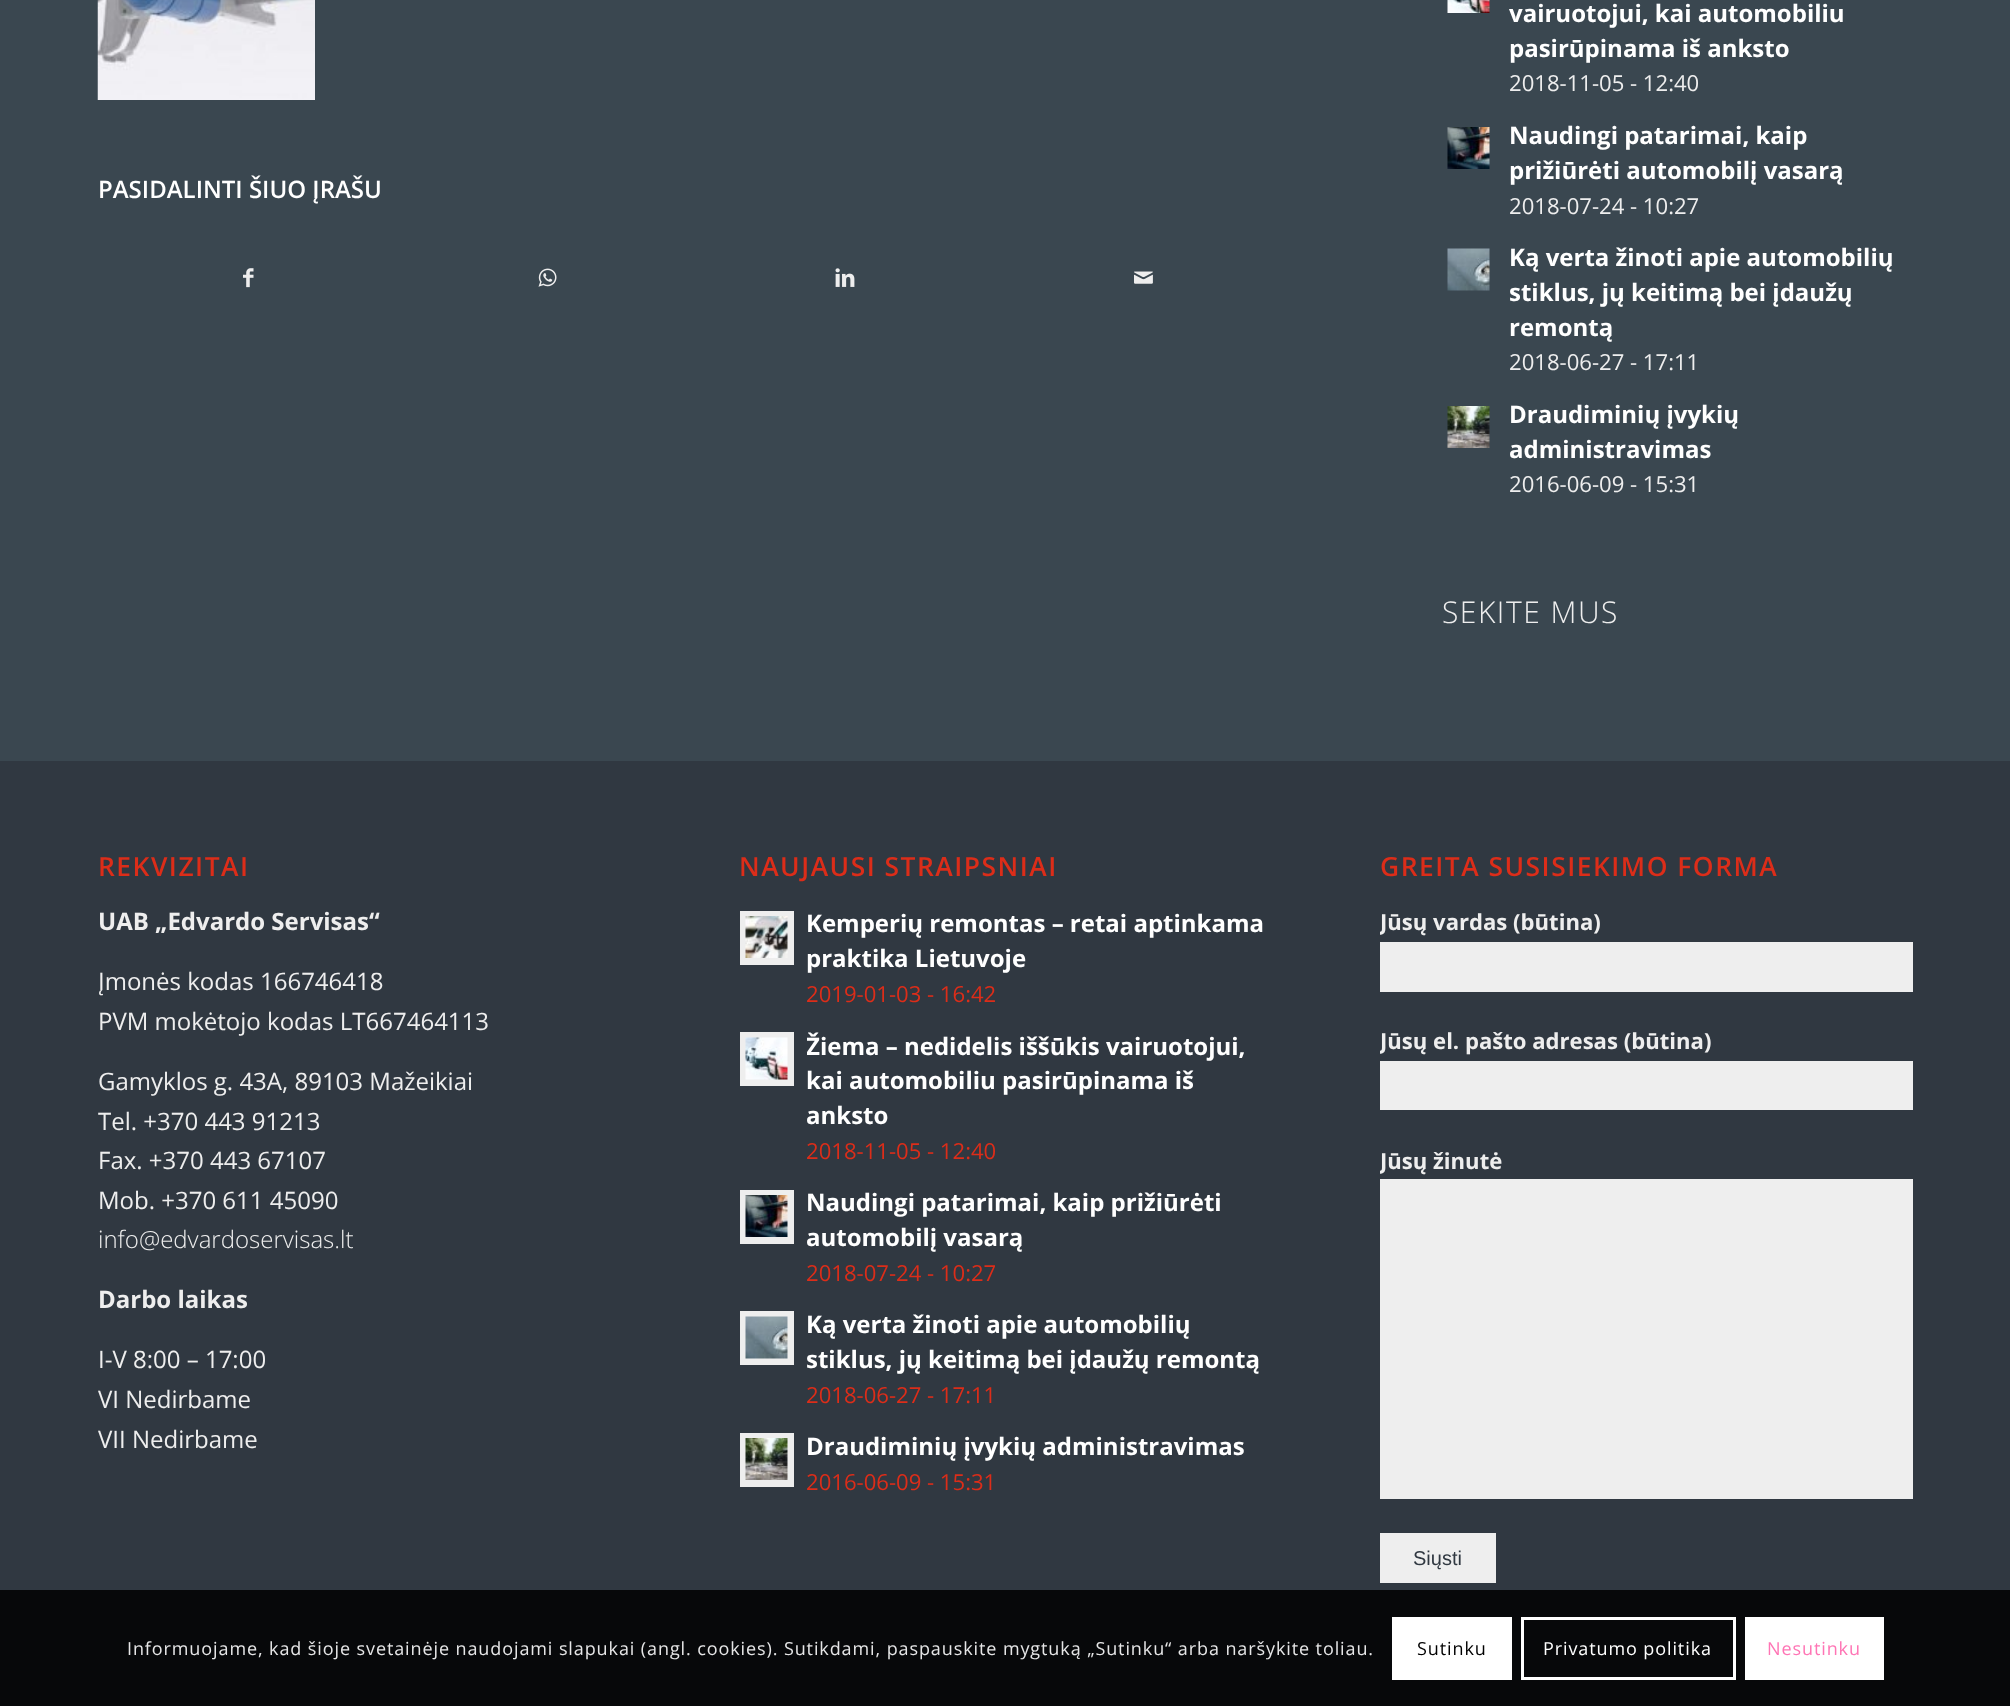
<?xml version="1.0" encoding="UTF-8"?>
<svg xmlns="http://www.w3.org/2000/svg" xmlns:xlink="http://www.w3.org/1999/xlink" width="2010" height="1706">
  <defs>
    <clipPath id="clip1"><rect x="807" y="1029" width="464" height="140" /></clipPath>
    <clipPath id="clip2"><rect x="1380" y="830" width="533" height="783" /></clipPath>
  </defs>
  <rect width="100%" height="100%" fill="#303841" />
  <rect width="2010" height="761" fill="#3a4750" />
  <image x="97" y="0" width="218" height="100" xlink:href="image1.png" />
  <image x="243" y="268" width="11" height="20" xlink:href="image2.png" />
  <image x="538" y="268" width="19" height="19" xlink:href="image3.png" />
  <image x="835" y="268" width="20" height="19" xlink:href="image4.png" />
  <image x="1134" y="271" width="19" height="13" xlink:href="image5.png" />
  <image x="1447" y="0" width="43" height="13" xlink:href="image6.png" />
  <image x="1447" y="127" width="43" height="42" xlink:href="image7.png" />
  <image x="1447" y="248" width="43" height="43" xlink:href="image8.png" />
  <image x="1447" y="406" width="43" height="42" xlink:href="image9.png" />
  <rect x="740" y="911" width="54" height="54" fill="#eeeeee" />
  <image x="745" y="916" width="43" height="42" xlink:href="image10.png" />
  <rect x="740" y="1032" width="54" height="54" fill="#eeeeee" />
  <image x="745" y="1037" width="43" height="43" xlink:href="image11.png" />
  <rect x="740" y="1190" width="54" height="54" fill="#eeeeee" />
  <image x="745" y="1195" width="43" height="42" xlink:href="image12.png" />
  <rect x="740" y="1311" width="54" height="54" fill="#eeeeee" />
  <image x="745" y="1316" width="43" height="43" xlink:href="image13.png" />
  <rect x="740" y="1433" width="54" height="54" fill="#eeeeee" />
  <image x="745" y="1438" width="43" height="42" xlink:href="image14.png" />
  <rect x="1380" y="942" width="533" height="50" fill="#eeeeee" />
  <rect x="1380" y="1061" width="533" height="49" fill="#eeeeee" />
  <rect x="1380" y="1179" width="533" height="320" fill="#eeeeee" />
  <rect x="1380" y="1533" width="116" height="50" fill="#eeeeee" />
  <rect y="1590" width="2010" height="116" fill="#07080a" />
  <rect x="1392" y="1617" width="120" height="63" fill="#ffffff" />
  <rect x="1522.5" y="1618.5" width="212" height="60" fill="none" stroke="#ffffff" stroke-width="3" />
  <rect x="1745" y="1617" width="139" height="63" fill="#ffffff" />
  <text x="98" y="198" style="font-family: Open Sans; font-size: 24px; font-weight: 600; fill: #ffffff">PASIDALINTI ŠIUO ĮRAŠU</text>
  <text x="1509" y="22" style="font-family: Open Sans; font-size: 24px; font-weight: bold; fill: #ffffff">vairuotojui, kai automobiliu</text>
  <text x="1509" y="57" style="font-family: Open Sans; font-size: 24px; font-weight: bold; fill: #ffffff">pasirūpinama iš anksto</text>
  <text x="1509" y="91" style="font-family: Open Sans; font-size: 22.1px; fill: #eeeeee">2018-11-05 - 12:40</text>
  <text x="1509" y="144" style="font-family: Open Sans; font-size: 24px; font-weight: bold; fill: #ffffff">Naudingi patarimai, kaip</text>
  <text x="1509" y="179" style="font-family: Open Sans; font-size: 24px; font-weight: bold; fill: #ffffff">prižiūrėti automobilį vasarą</text>
  <text x="1509" y="214" style="font-family: Open Sans; font-size: 22.1px; fill: #eeeeee">2018-07-24 - 10:27</text>
  <text x="1509" y="266" style="font-family: Open Sans; font-size: 24px; font-weight: bold; fill: #ffffff">Ką verta žinoti apie automobilių</text>
  <text x="1509" y="301" style="font-family: Open Sans; font-size: 24px; font-weight: bold; fill: #ffffff">stiklus, jų keitimą bei įdaužų</text>
  <text x="1509" y="336" style="font-family: Open Sans; font-size: 24px; font-weight: bold; fill: #ffffff">remontą</text>
  <text x="1509" y="370" style="font-family: Open Sans; font-size: 22.1px; fill: #eeeeee">2018-06-27 - 17:11</text>
  <text x="1509" y="423" style="font-family: Open Sans; font-size: 24px; font-weight: bold; fill: #ffffff">Draudiminių įvykių</text>
  <text x="1509" y="458" style="font-family: Open Sans; font-size: 24px; font-weight: bold; fill: #ffffff">administravimas</text>
  <text x="1509" y="492" style="font-family: Open Sans; font-size: 22.1px; fill: #eeeeee">2016-06-09 - 15:31</text>
  <text x="1442" y="623" style="font-family: Open Sans; font-size: 30px; font-weight: 300; letter-spacing: 1.5px; fill: #eeeeee">SEKITE MUS</text>
  <text x="98" y="876" style="font-family: Open Sans; font-size: 26.4px; font-weight: 600; letter-spacing: 1.5px; fill: #dc2d19">REKVIZITAI</text>
  <text x="98" y="930" style="font-family: Open Sans; font-size: 24px; font-weight: bold; fill: #eeeeee">UAB „Edvardo Servisas“</text>
  <text x="98" y="990" style="font-family: Open Sans; font-size: 24px; fill: #eeeeee">Įmonės kodas 166746418</text>
  <text x="98" y="1030" style="font-family: Open Sans; font-size: 24px; fill: #eeeeee">PVM mokėtojo kodas LT667464113</text>
  <text x="98" y="1090" style="font-family: Open Sans; font-size: 24px; fill: #eeeeee">Gamyklos g. 43A, 89103 Mažeikiai</text>
  <text x="98" y="1130" style="font-family: Open Sans; font-size: 24px; fill: #eeeeee">Tel. +370 443 91213</text>
  <text x="98" y="1169" style="font-family: Open Sans; font-size: 24px; fill: #eeeeee">Fax. +370 443 67107</text>
  <text x="98" y="1209" style="font-family: Open Sans; font-size: 24px; fill: #eeeeee">Mob. +370 611 45090</text>
  <text x="98" y="1248" style="font-family: Open Sans; font-size: 24px; font-weight: 300; fill: #eeeeee">info@edvardoservisas.lt</text>
  <text x="98" y="1308" style="font-family: Open Sans; font-size: 24px; font-weight: bold; fill: #eeeeee">Darbo laikas</text>
  <text x="98" y="1368" style="font-family: Open Sans; font-size: 24px; fill: #eeeeee">I-V 8:00 – 17:00</text>
  <text x="98" y="1408" style="font-family: Open Sans; font-size: 24px; fill: #eeeeee">VI Nedirbame</text>
  <text x="98" y="1448" style="font-family: Open Sans; font-size: 24px; fill: #eeeeee">VII Nedirbame</text>
  <text x="739" y="876" style="font-family: Open Sans; font-size: 26.4px; font-weight: 600; letter-spacing: 1.5px; fill: #dc2d19">NAUJAUSI STRAIPSNIAI</text>
  <text x="806" y="932" style="font-family: Open Sans; font-size: 24px; font-weight: bold; fill: #ffffff">Kemperių remontas – retai aptinkama</text>
  <text x="806" y="967" style="font-family: Open Sans; font-size: 24px; font-weight: bold; fill: #ffffff">praktika Lietuvoje</text>
  <text x="806" y="1002" style="font-family: Open Sans; font-size: 22.1px; fill: #dc2d19">2019-01-03 - 16:42</text>
  <g clip-path="url(#clip1)">
    <text x="806" y="1055" style="font-family: Open Sans; font-size: 24px; font-weight: bold; fill: #ffffff">Žiema – nedidelis iššūkis vairuotojui,</text>
  </g>
  <text x="806" y="1089" style="font-family: Open Sans; font-size: 24px; font-weight: bold; fill: #ffffff">kai automobiliu pasirūpinama iš</text>
  <text x="806" y="1124" style="font-family: Open Sans; font-size: 24px; font-weight: bold; fill: #ffffff">anksto</text>
  <text x="806" y="1159" style="font-family: Open Sans; font-size: 22.1px; fill: #dc2d19">2018-11-05 - 12:40</text>
  <text x="806" y="1211" style="font-family: Open Sans; font-size: 24px; font-weight: bold; fill: #ffffff">Naudingi patarimai, kaip prižiūrėti</text>
  <text x="806" y="1246" style="font-family: Open Sans; font-size: 24px; font-weight: bold; fill: #ffffff">automobilį vasarą</text>
  <text x="806" y="1281" style="font-family: Open Sans; font-size: 22.1px; fill: #dc2d19">2018-07-24 - 10:27</text>
  <text x="806" y="1333" style="font-family: Open Sans; font-size: 24px; font-weight: bold; fill: #ffffff">Ką verta žinoti apie automobilių</text>
  <text x="806" y="1368" style="font-family: Open Sans; font-size: 24px; font-weight: bold; fill: #ffffff">stiklus, jų keitimą bei įdaužų remontą</text>
  <text x="806" y="1403" style="font-family: Open Sans; font-size: 22.1px; fill: #dc2d19">2018-06-27 - 17:11</text>
  <text x="806" y="1455" style="font-family: Open Sans; font-size: 24px; font-weight: bold; fill: #ffffff">Draudiminių įvykių administravimas</text>
  <text x="806" y="1490" style="font-family: Open Sans; font-size: 22.1px; fill: #dc2d19">2016-06-09 - 15:31</text>
  <text x="1380" y="876" style="font-family: Open Sans; font-size: 26.4px; font-weight: 600; letter-spacing: 1.5px; fill: #dc2d19">GREITA SUSISIEKIMO FORMA</text>
  <g clip-path="url(#clip2)">
    <text x="1380" y="930" style="font-family: Open Sans; font-size: 22.1px; font-weight: bold; fill: #eeeeee">Jūsų vardas (būtina)</text>
    <text x="1380" y="1049" style="font-family: Open Sans; font-size: 22.1px; font-weight: bold; fill: #eeeeee">Jūsų el. pašto adresas (būtina)</text>
    <text x="1380" y="1169" style="font-family: Open Sans; font-size: 22.1px; font-weight: bold; fill: #eeeeee">Jūsų žinutė</text>
  </g>
  <text x="1413" y="1565" style="font-family: Liberation Sans; font-size: 20px; fill: #303841">Siųsti</text>
  <text x="127" y="1655" style="font-family: Open Sans; font-size: 18px; letter-spacing: 0.9px; fill: #e6e6e7">Informuojame, kad šioje svetainėje naudojami slapukai (angl. cookies). Sutikdami, paspauskite mygtuką „Sutinku“ arba naršykite toliau.</text>
  <text x="1417" y="1655" style="font-family: Open Sans; font-size: 18px; letter-spacing: 0.9px; fill: #000000">Sutinku</text>
  <text x="1543" y="1655" style="font-family: Open Sans; font-size: 18px; letter-spacing: 0.9px; fill: #ffffff">Privatumo politika</text>
  <text x="1767" y="1655" style="font-family: Open Sans; font-size: 18px; letter-spacing: 0.9px; fill: #ff75b5">Nesutinku</text>
</svg>
